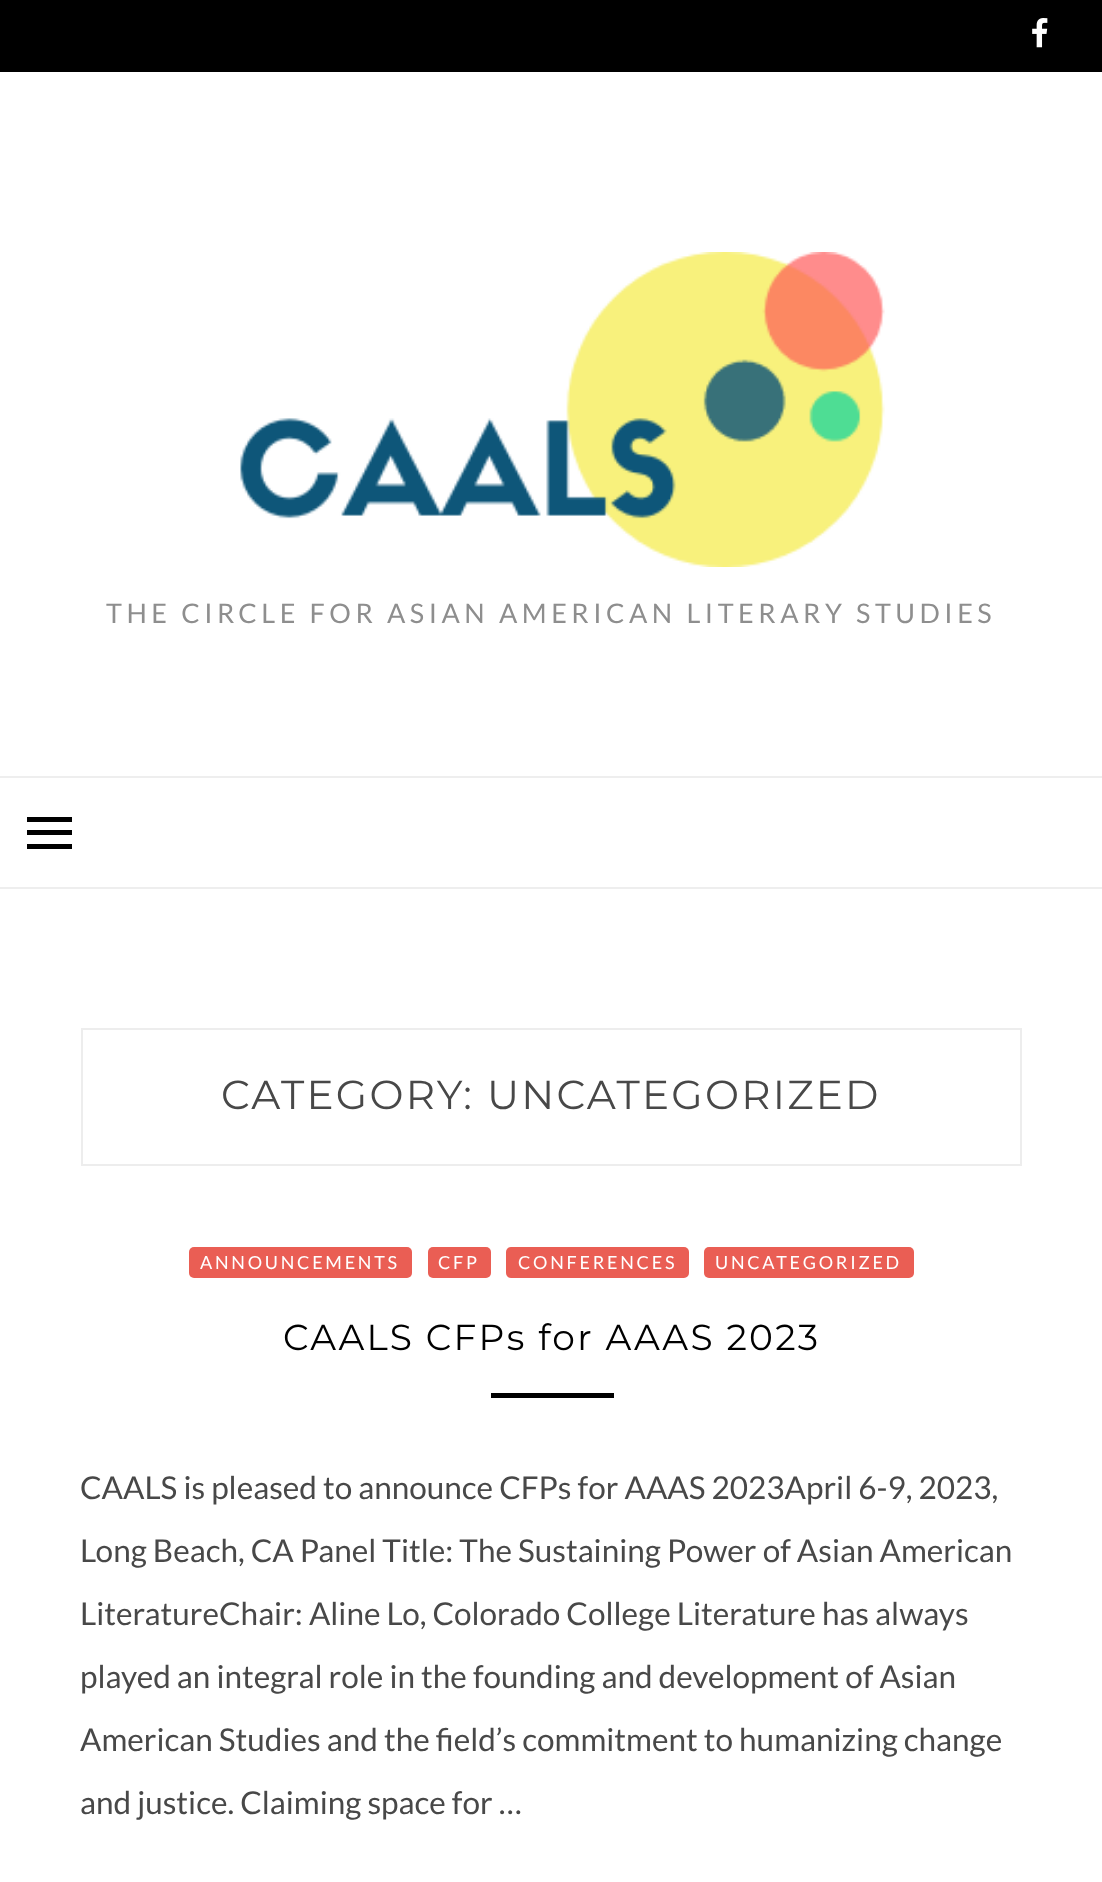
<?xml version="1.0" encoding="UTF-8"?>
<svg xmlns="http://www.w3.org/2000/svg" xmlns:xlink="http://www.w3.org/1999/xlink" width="1102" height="1882">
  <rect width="100%" height="100%" fill="#ffffff" />
  <rect width="1102" height="72" fill="#000000" />
  <image x="1032" y="18" width="16" height="30" xlink:href="image1.png" />
  <image x="240" y="252" width="645" height="315" xlink:href="image2.png" />
  <rect y="776" width="1102" height="2" fill="#eeeeee" />
  <rect y="887" width="1102" height="2" fill="#eeeeee" />
  <rect x="27" y="817" width="45" height="5" fill="#000000" />
  <rect x="27" y="830" width="45" height="5" fill="#000000" />
  <rect x="27" y="844" width="45" height="5" fill="#000000" />
  <rect x="82" y="1029" width="939" height="136" fill="none" stroke="#ededed" stroke-width="2" />
  <rect x="189" y="1247" width="223" height="31" rx="5" fill="#ea5e54" />
  <rect x="428" y="1247" width="63" height="31" rx="5" fill="#ea5e54" />
  <rect x="506" y="1247" width="183" height="31" rx="5" fill="#ea5e54" />
  <rect x="704" y="1247" width="210" height="31" rx="5" fill="#ea5e54" />
  <rect x="491" y="1393" width="123" height="5" fill="#000000" />
  <text x="106" y="623" style="font-family: Lato; font-size: 27px; letter-spacing: 4.5px; fill: #8e8e8e">THE CIRCLE FOR ASIAN AMERICAN LITERARY STUDIES</text>
  <text x="221" y="1109" style="font-family: Montserrat; font-size: 40.5px; letter-spacing: 2.25px; fill: #484848">CATEGORY: UNCATEGORIZED</text>
  <text x="200" y="1269" style="font-family: Lato; font-size: 18px; letter-spacing: 2.75px; fill: #ffffff">ANNOUNCEMENTS</text>
  <text x="438" y="1269" style="font-family: Lato; font-size: 18px; letter-spacing: 2.75px; fill: #ffffff">CFP</text>
  <text x="518" y="1269" style="font-family: Lato; font-size: 18px; letter-spacing: 2.75px; fill: #ffffff">CONFERENCES</text>
  <text x="715" y="1269" style="font-family: Lato; font-size: 18px; letter-spacing: 2.75px; fill: #ffffff">UNCATEGORIZED</text>
  <text x="283" y="1350" style="font-family: Montserrat; font-size: 36px; letter-spacing: 2.25px; fill: #000000">CAALS CFPs for AAAS 2023</text>
  <text x="80" y="1499" style="font-family: Lato; font-size: 31.5px; fill: #484848">CAALS is pleased to announce CFPs for AAAS 2023April 6-9, 2023,</text>
  <text x="80" y="1562" style="font-family: Lato; font-size: 31.5px; fill: #484848">Long Beach, CA Panel Title: The Sustaining Power of Asian American</text>
  <text x="80" y="1625" style="font-family: Lato; font-size: 31.5px; fill: #484848">LiteratureChair: Aline Lo, Colorado College Literature has always</text>
  <text x="80" y="1688" style="font-family: Lato; font-size: 31.5px; fill: #484848">played an integral role in the founding and development of Asian</text>
  <text x="80" y="1751" style="font-family: Lato; font-size: 31.5px; fill: #484848">American Studies and the field’s commitment to humanizing change</text>
  <text x="80" y="1814" style="font-family: Lato; font-size: 31.5px; fill: #484848">and justice. Claiming space for …</text>
</svg>
